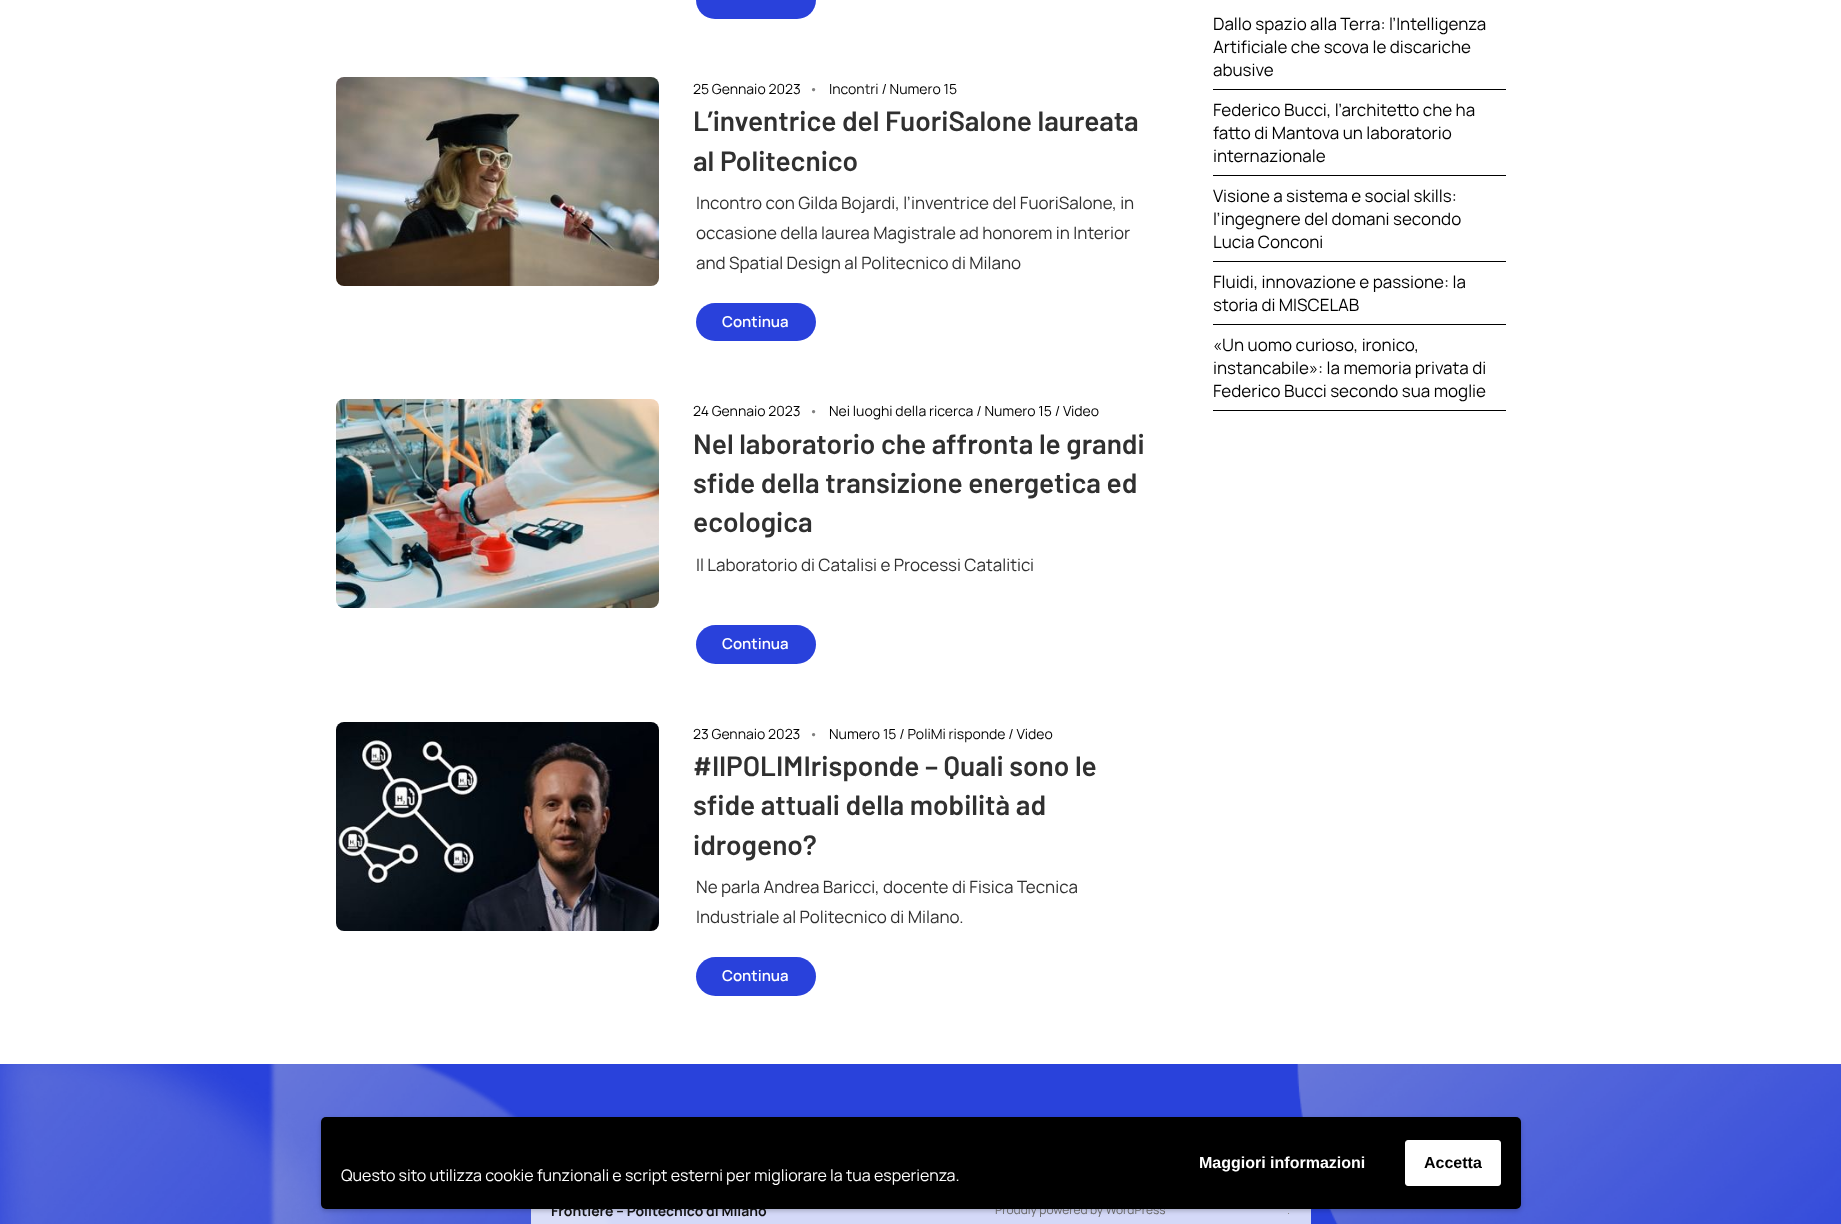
<?xml version="1.0" encoding="UTF-8"?>
<svg xmlns="http://www.w3.org/2000/svg" xmlns:xlink="http://www.w3.org/1999/xlink" width="1841" height="1224">
  <rect width="100%" height="100%" fill="#ffffff" />
  <rect x="696" y="-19" width="120" height="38" rx="19" fill="#2941db" />
  <image x="336" y="77" width="323" height="209" xlink:href="image1.png" />
  <rect x="696" y="303" width="120" height="38" rx="19" fill="#2941db" />
  <image x="336" y="399" width="323" height="209" xlink:href="image2.png" />
  <rect x="696" y="625" width="120" height="39" rx="19.5" fill="#2941db" />
  <image x="336" y="722" width="323" height="209" xlink:href="image3.png" />
  <rect x="696" y="957" width="120" height="39" rx="19.5" fill="#2941db" />
  <rect x="1213" y="89" width="293" height="1" fill="#000000" />
  <rect x="1213" y="175" width="293" height="1" fill="#000000" />
  <rect x="1213" y="261" width="293" height="1" fill="#000000" />
  <rect x="1213" y="324" width="293" height="1" fill="#000000" />
  <rect x="1213" y="410" width="293" height="1" fill="#000000" />
  <rect y="1064" width="1841" height="160" fill="#2942db" />
  <image x="0" y="1064" width="1841" height="160" xlink:href="image4.png" />
  <rect x="531" y="1209" width="780" height="15" fill="#ffffff" fill-opacity="0.8" />
  <rect x="321" y="1119" width="1200" height="92" rx="5" fill="#000000" fill-opacity="0.2" filter="blur(2px)" />
  <text x="693" y="94" style="font-family: Manrope; font-size: 14px; fill: #000000">25 Gennaio 2023</text>
  <text x="809" y="94" style="font-family: Manrope; font-size: 14px; fill: #808080">•</text>
  <text x="829" y="94" style="font-family: Manrope; font-size: 14px; fill: #000000">Incontri / Numero 15</text>
  <text x="693" y="131" style="font-family: Barlow; font-size: 28px; font-weight: 600; fill: #303030">L’inventrice del FuoriSalone laureata</text>
  <text x="693" y="171" style="font-family: Barlow; font-size: 28px; font-weight: 600; fill: #303030">al Politecnico</text>
  <text x="696" y="209" style="font-family: Manrope; font-size: 17px; fill: #303030">Incontro con Gilda Bojardi, l’inventrice del FuoriSalone, in</text>
  <text x="696" y="239" style="font-family: Manrope; font-size: 17px; fill: #303030">occasione della laurea Magistrale ad honorem in Interior</text>
  <text x="696" y="269" style="font-family: Manrope; font-size: 17px; fill: #303030">and Spatial Design al Politecnico di Milano</text>
  <text x="722" y="327" style="font-family: Manrope; font-size: 15px; font-weight: 600; fill: #ffffff">Continua</text>
  <text x="693" y="416" style="font-family: Manrope; font-size: 14px; fill: #000000">24 Gennaio 2023</text>
  <text x="809" y="416" style="font-family: Manrope; font-size: 14px; fill: #808080">•</text>
  <text x="829" y="416" style="font-family: Manrope; font-size: 14px; fill: #000000">Nei luoghi della ricerca / Numero 15 / Video</text>
  <text x="693" y="454" style="font-family: Barlow; font-size: 28px; font-weight: 600; fill: #303030">Nel laboratorio che affronta le grandi</text>
  <text x="693" y="493" style="font-family: Barlow; font-size: 28px; font-weight: 600; fill: #303030">sfide della transizione energetica ed</text>
  <text x="693" y="532" style="font-family: Barlow; font-size: 28px; font-weight: 600; fill: #303030">ecologica</text>
  <text x="696" y="571" style="font-family: Manrope; font-size: 17px; fill: #303030">Il Laboratorio di Catalisi e Processi Catalitici</text>
  <text x="722" y="649" style="font-family: Manrope; font-size: 15px; font-weight: 600; fill: #ffffff">Continua</text>
  <text x="693" y="739" style="font-family: Manrope; font-size: 14px; fill: #000000">23 Gennaio 2023</text>
  <text x="809" y="739" style="font-family: Manrope; font-size: 14px; fill: #808080">•</text>
  <text x="829" y="739" style="font-family: Manrope; font-size: 14px; fill: #000000">Numero 15 / PoliMi risponde / Video</text>
  <text x="693" y="776" style="font-family: Barlow; font-size: 28px; font-weight: 600; fill: #303030">#IlPOLIMIrisponde – Quali sono le</text>
  <text x="693" y="815" style="font-family: Barlow; font-size: 28px; font-weight: 600; fill: #303030">sfide attuali della mobilità ad</text>
  <text x="693" y="855" style="font-family: Barlow; font-size: 28px; font-weight: 600; fill: #303030">idrogeno?</text>
  <text x="696" y="893" style="font-family: Manrope; font-size: 17px; fill: #303030">Ne parla Andrea Baricci, docente di Fisica Tecnica</text>
  <text x="696" y="923" style="font-family: Manrope; font-size: 17px; fill: #303030">Industriale al Politecnico di Milano.</text>
  <text x="722" y="981" style="font-family: Manrope; font-size: 15px; font-weight: 600; fill: #ffffff">Continua</text>
  <text x="1213" y="30" style="font-family: Manrope; font-size: 17px; fill: #000000">Dallo spazio alla Terra: l’Intelligenza</text>
  <text x="1213" y="53" style="font-family: Manrope; font-size: 17px; fill: #000000">Artificiale che scova le discariche</text>
  <text x="1213" y="76" style="font-family: Manrope; font-size: 17px; fill: #000000">abusive</text>
  <text x="1213" y="116" style="font-family: Manrope; font-size: 17px; fill: #000000">Federico Bucci, l’architetto che ha</text>
  <text x="1213" y="139" style="font-family: Manrope; font-size: 17px; fill: #000000">fatto di Mantova un laboratorio</text>
  <text x="1213" y="162" style="font-family: Manrope; font-size: 17px; fill: #000000">internazionale</text>
  <text x="1213" y="202" style="font-family: Manrope; font-size: 17px; fill: #000000">Visione a sistema e social skills:</text>
  <text x="1213" y="225" style="font-family: Manrope; font-size: 17px; fill: #000000">l’ingegnere del domani secondo</text>
  <text x="1213" y="248" style="font-family: Manrope; font-size: 17px; fill: #000000">Lucia Conconi</text>
  <text x="1213" y="288" style="font-family: Manrope; font-size: 17px; fill: #000000">Fluidi, innovazione e passione: la</text>
  <text x="1213" y="311" style="font-family: Manrope; font-size: 17px; fill: #000000">storia di MISCELAB</text>
  <text x="1213" y="351" style="font-family: Manrope; font-size: 17px; fill: #000000">«Un uomo curioso, ironico,</text>
  <text x="1213" y="374" style="font-family: Manrope; font-size: 17px; fill: #000000">instancabile»: la memoria privata di</text>
  <text x="1213" y="397" style="font-family: Manrope; font-size: 17px; fill: #000000">Federico Bucci secondo sua moglie</text>
  <text x="551" y="1216" style="font-family: Manrope; font-size: 14px; font-weight: bold; fill: #111111">Frontiere – Politecnico di Milano</text>
  <text x="995" y="1214" style="font-family: Manrope; font-size: 12px; fill: #666666">Proudly powered by WordPress</text>
  <rect x="321" y="1117" width="1200" height="92" rx="5" fill="#000000" />
  <rect x="1405.5" y="1140.5" width="95" height="45" rx="2.5" fill="#ffffff" stroke="#ffffff" />
  <text x="1424" y="1168" style="font-family: Liberation Sans; font-size: 16px; font-weight: bold; fill: #000000">Accetta</text>
  <text x="1199" y="1168" style="font-family: Liberation Sans; font-size: 16px; font-weight: bold; fill: #ffffff">Maggiori informazioni</text>
  <text x="341" y="1181" style="font-family: Manrope; font-size: 16px; fill: #ffffff">Questo sito utilizza cookie funzionali e script esterni per migliorare la tua esperienza.</text>
  <text x="1287" y="1214" style="font-family: Manrope; font-size: 12px; fill: #888888">.</text>
</svg>
